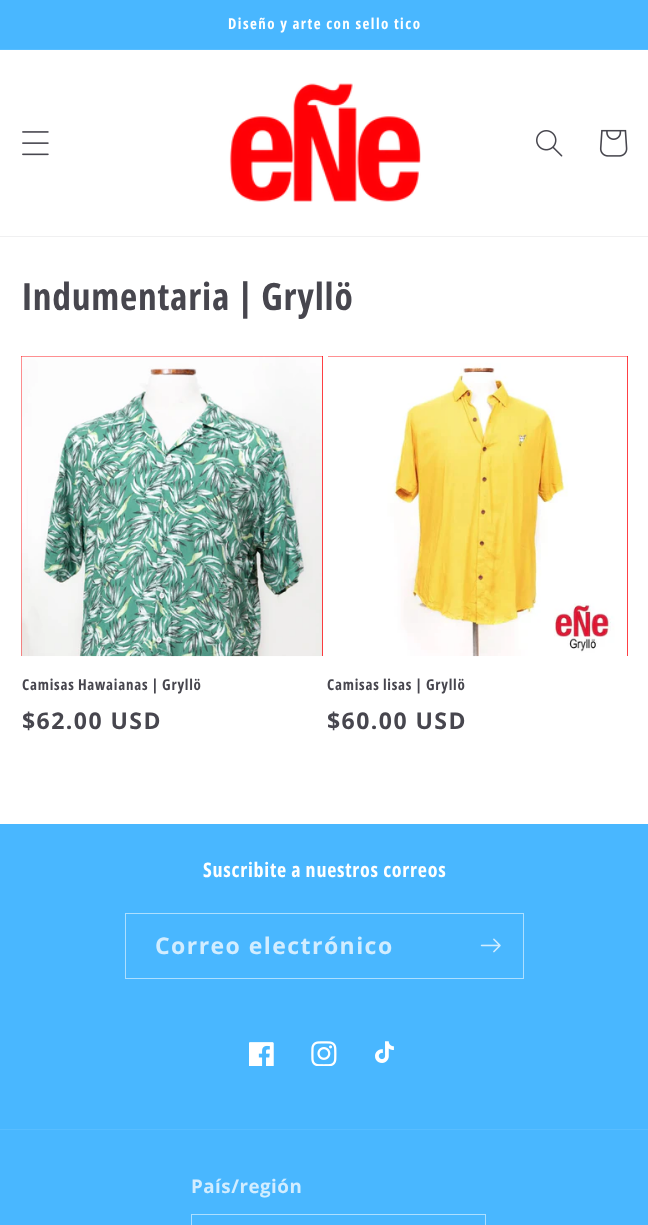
<?xml version="1.0" encoding="UTF-8"?>
<svg xmlns="http://www.w3.org/2000/svg" xmlns:xlink="http://www.w3.org/1999/xlink" width="648" height="1225">
  <rect width="100%" height="100%" fill="#ffffff" />
  <rect width="648" height="49" fill="#49b7ff" />
  <rect y="49" width="648" height="1" fill="#58bdff" />
  <rect y="236" width="648" height="1" fill="#f0f0f1" />
  <image x="22" y="131" width="27" height="25" xlink:href="image1.png" />
  <image x="229" y="83" width="192" height="119" xlink:href="image2.png" />
  <image x="536" y="130" width="27" height="27" xlink:href="image3.png" />
  <image x="599" y="129" width="29" height="28" xlink:href="image4.png" />
  <rect x="21" y="356" width="302" height="300" fill="#ff0006" />
  <image x="21" y="356" width="302" height="301" xlink:href="image5.png" />
  <rect x="328" y="356" width="300" height="300" fill="#ff0006" />
  <image x="328" y="356" width="300" height="301" xlink:href="image6.png" />
  <rect y="824" width="648" height="401" fill="#49b7ff" />
  <rect x="125.5" y="913.5" width="398" height="65" fill="none" stroke="#addfff" />
  <image x="480" y="938" width="21" height="15" xlink:href="image7.png" />
  <image x="249" y="1042" width="25" height="24" xlink:href="image8.png" />
  <image x="311" y="1041" width="26" height="25" xlink:href="image9.png" />
  <image x="375" y="1041" width="19" height="22" xlink:href="image10.png" />
  <rect y="1129" width="648" height="1" fill="#58bdff" />
  <rect x="191.5" y="1214.5" width="294" height="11" fill="none" stroke="#addfff" />
  <text x="228" y="29" style="font-family: Open Sans Condensed; font-size: 15px; font-weight: bold; letter-spacing: 1.45px; fill: #ffffff">Diseño y arte con sello tico</text>
  <text x="22" y="310" style="font-family: Open Sans Condensed; font-size: 37.5px; font-weight: bold; letter-spacing: 0.75px; fill: #47464e">Indumentaria | Gryllö</text>
  <text x="22" y="690" style="font-family: Open Sans Condensed; font-size: 15px; font-weight: bold; letter-spacing: 0.75px; fill: #47464e">Camisas Hawaianas | Gryllö</text>
  <text x="22" y="729" style="font-family: Open Sans; font-size: 23px; font-weight: bold; letter-spacing: 1.45px; fill: #47464e">$62.00 USD</text>
  <text x="327" y="690" style="font-family: Open Sans Condensed; font-size: 15px; font-weight: bold; letter-spacing: 0.75px; fill: #47464e">Camisas lisas | Gryllö</text>
  <text x="327" y="729" style="font-family: Open Sans; font-size: 23px; font-weight: bold; letter-spacing: 1.45px; fill: #47464e">$60.00 USD</text>
  <text x="203" y="877" style="font-family: Open Sans Condensed; font-size: 20px; font-weight: bold; letter-spacing: 0.75px; fill: #ffffff">Suscribite a nuestros correos</text>
  <text x="155" y="954" style="font-family: Open Sans; font-size: 23px; font-weight: bold; letter-spacing: 1.45px; fill: #d2edff">Correo electrónico</text>
  <text x="191" y="1193" style="font-family: Open Sans; font-size: 18.75px; font-weight: bold; letter-spacing: 0.5px; fill: #d2edff">País/región</text>
</svg>
